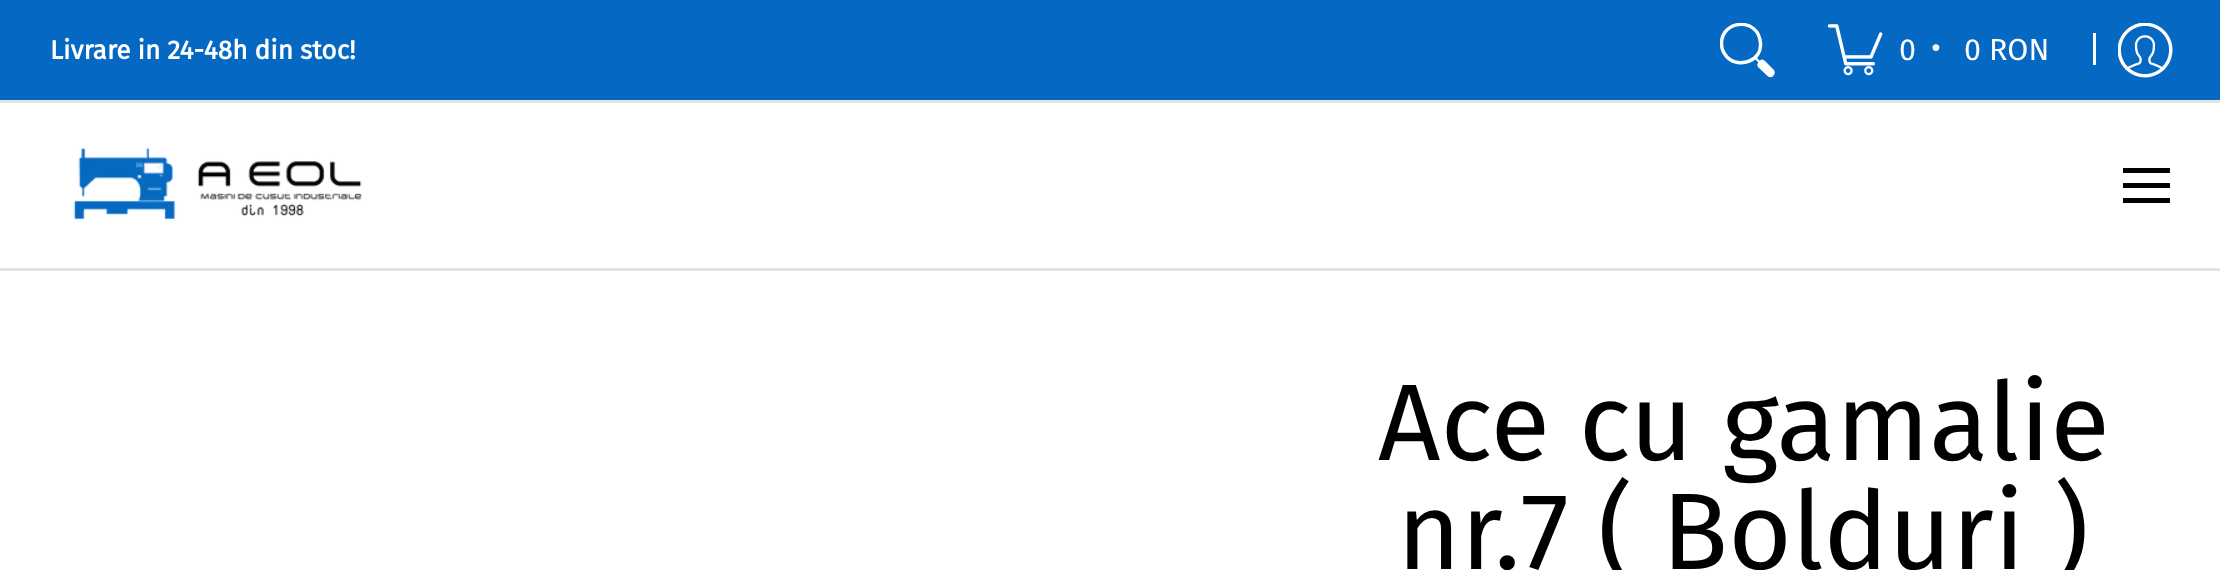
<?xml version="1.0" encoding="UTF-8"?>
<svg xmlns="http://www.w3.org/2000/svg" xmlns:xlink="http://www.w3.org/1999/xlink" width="2220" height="570">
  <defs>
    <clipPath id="clip1"><rect x="1720" y="23" width="55" height="55" /></clipPath>
  </defs>
  <rect width="100%" height="100%" fill="#ffffff" />
  <rect width="2220" height="100" fill="#0568c2" />
  <rect y="100" width="2220" height="3" fill="#e4e4e4" />
  <g clip-path="url(#clip1)">
    <path d="M 1721.5 43.5 c 0 5.5 2.5 10.5 6 14 c 12 11.5 34.5 3 33 -14 c -1.5 -27 -39 -24 -39 0 z" fill="none" stroke="#ffffff" stroke-width="3.4" stroke-linecap="round" stroke-linejoin="round" />
  </g>
  <path d="M 1754.5 57 l 5.5 5.5" fill="none" stroke="#ffffff" stroke-width="2.3" stroke-linejoin="round" />
  <path d="M 1773.5 69.5 c 3.5 4 -1 9.5 -5.5 7 l -10 -9.5 c -1 -1 -1 -3 0 -4 c 3.5 -6 6 -3 9.5 0.5 z" fill="#ffffff" />
  <image x="1828" y="24" width="55" height="52" xlink:href="image1.png" />
  <rect x="2093" y="33" width="3" height="32" fill="#ffffff" />
  <image x="2118" y="23" width="55" height="55" xlink:href="image2.png" />
  <rect y="268" width="2220" height="3" fill="#e4e4e4" />
  <image x="73" y="147" width="289" height="73" xlink:href="image3.png" />
  <rect x="2123" y="168" width="47" height="5" fill="#000000" />
  <rect x="2123" y="198" width="47" height="5" fill="#000000" />
  <rect x="2123" y="183" width="47" height="5" fill="#000000" />
  <text x="50" y="59" style="font-family: Fira Sans; font-size: 26.25px; font-weight: bold; fill: #ffffff">Livrare in 24-48h din stoc!</text>
  <text x="1899" y="60" style="font-family: Fira Sans; font-size: 30.5px; fill: #ffffff">0</text>
  <text x="1931" y="58" style="font-family: Fira Sans; font-size: 30.5px; fill: #ffffff">•</text>
  <text x="1964" y="60" style="font-family: Fira Sans; font-size: 30.5px; fill: #ffffff">0 RON</text>
  <text x="1378" y="460" style="font-family: Fira Sans; font-size: 109px; fill: #000000">Ace cu gamalie</text>
  <text x="1397" y="569" style="font-family: Fira Sans; font-size: 109px; fill: #000000">nr.7 ( Bolduri )</text>
</svg>
